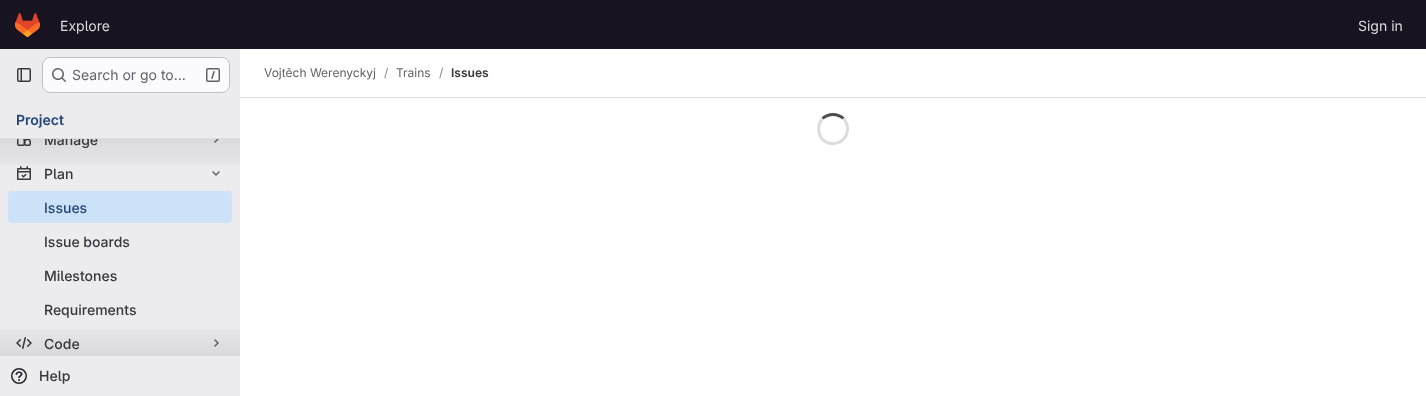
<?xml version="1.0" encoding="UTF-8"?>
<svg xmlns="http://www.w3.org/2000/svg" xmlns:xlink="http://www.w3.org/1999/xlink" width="1426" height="396">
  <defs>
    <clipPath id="clip1"><rect x="208" y="139" width="16" height="8" /></clipPath>
    <linearGradient id="g1" gradientUnits="userSpaceOnUse" x1="120" y1="139" x2="120" y2="175"><stop offset="0" stop-color="#050506" stop-opacity="0.08" /><stop offset="1" stop-color="#050506" stop-opacity="0" /></linearGradient>
    <linearGradient id="g2" gradientUnits="userSpaceOnUse" x1="120" y1="319" x2="120" y2="355"><stop offset="0" stop-color="#050506" stop-opacity="0" /><stop offset="1" stop-color="#050506" stop-opacity="0.08" /></linearGradient>
    <clipPath id="clip2"><rect x="44" y="139" width="156" height="11" /></clipPath>
  </defs>
  <rect width="100%" height="100%" fill="#ffffff" />
  <rect width="1426" height="49" fill="#171321" />
  <image x="15" y="13" width="25" height="24" xlink:href="image1.png" />
  <rect y="49" width="240" height="347" fill="#ececef" />
  <image x="17" y="68" width="14" height="14" xlink:href="image2.png" />
  <rect x="42" y="57" width="188" height="36" rx="8" fill="#fbfafd" />
  <rect x="42.5" y="57.5" width="187" height="35" rx="7.5" fill="none" stroke="#050506" stroke-opacity="0.24" />
  <image x="52" y="68" width="14" height="14" xlink:href="image3.png" />
  <image x="206" y="68" width="14" height="14" xlink:href="image4.png" />
  <rect y="138" width="240" height="1" fill="#dcdcde" />
  <rect y="355" width="240" height="1" fill="#dcdcde" />
  <image x="17" y="139" width="14" height="7" xlink:href="image5.png" />
  <g clip-path="url(#clip1)">
    <path d="M 215 136 l 3 3 l -3 3" fill="none" stroke="#626168" stroke-width="1.5" stroke-linecap="round" stroke-linejoin="round" />
  </g>
  <rect y="139" width="240" height="26" fill="url(#g1)" />
  <image x="17" y="166" width="14" height="14" xlink:href="image6.png" />
  <path d="M 219 172 l -3 3 l -3 -3" fill="none" stroke="#626168" stroke-width="1.5" stroke-linecap="round" stroke-linejoin="round" />
  <rect x="8" y="191" width="224" height="32" rx="4" fill="#cbe2f9" />
  <image x="16" y="337" width="16" height="12" xlink:href="image7.png" />
  <path d="M 215 340 l 3 3 l -3 3" fill="none" stroke="#626168" stroke-width="1.5" stroke-linecap="round" stroke-linejoin="round" />
  <rect y="329" width="240" height="26" fill="url(#g2)" />
  <image x="11" y="368" width="16" height="16" xlink:href="image8.png" />
  <rect x="240" y="97" width="1186" height="1" fill="#dcdcde" />
  <path d="M 822.5 118.5 c 6 -5.5 15 -5.5 21 0" fill="none" stroke="#4c4b51" stroke-width="3" />
  <path d="M 843.5 118.5 c 2.5 3 4 6.5 4 10.5 c 0 17.5 -25.5 20 -28.5 3 c -1 -5 0.5 -10 3.5 -13.5" fill="none" stroke="#dcdcde" stroke-width="3" />
  <text x="60" y="31" style="font-family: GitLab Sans; font-size: 14px; fill: #dcdcde">Explore</text>
  <text x="1358" y="31" style="font-family: GitLab Sans; font-size: 14px; fill: #dcdcde">Sign in</text>
  <text x="72" y="80" style="font-family: GitLab Sans; font-size: 14px; fill: #626168">Search or go to…</text>
  <text x="16" y="125" style="font-family: GitLab Sans; font-size: 14px; font-weight: 600; fill: #284779">Project</text>
  <g clip-path="url(#clip2)">
    <text x="44" y="145" style="font-family: GitLab Sans; font-size: 14px; font-weight: 500; fill: #3a383f">Manage</text>
  </g>
  <text x="44" y="179" style="font-family: GitLab Sans; font-size: 14px; font-weight: 500; fill: #3a383f">Plan</text>
  <text x="44" y="213" style="font-family: GitLab Sans; font-size: 14px; font-weight: 500; fill: #284779">Issues</text>
  <text x="44" y="247" style="font-family: GitLab Sans; font-size: 14px; font-weight: 500; fill: #3a383f">Issue boards</text>
  <text x="44" y="281" style="font-family: GitLab Sans; font-size: 14px; font-weight: 500; fill: #3a383f">Milestones</text>
  <text x="44" y="315" style="font-family: GitLab Sans; font-size: 14px; font-weight: 500; fill: #3a383f">Requirements</text>
  <text x="44" y="349" style="font-family: GitLab Sans; font-size: 14px; font-weight: 500; fill: #3a383f">Code</text>
  <text x="39" y="381" style="font-family: GitLab Sans; font-size: 14px; font-weight: 500; fill: #3a383f">Help</text>
  <text x="264" y="77" style="font-family: GitLab Sans; font-size: 12px; fill: #626168">Vojtěch Werenyckyj</text>
  <text x="384" y="77" style="font-family: GitLab Sans; font-size: 12px; fill: #89888d">/</text>
  <text x="396" y="77" style="font-family: GitLab Sans; font-size: 12px; fill: #626168">Trains</text>
  <text x="439" y="77" style="font-family: GitLab Sans; font-size: 12px; fill: #89888d">/</text>
  <text x="451" y="77" style="font-family: GitLab Sans; font-size: 12px; font-weight: 600; fill: #3a383f">Issues</text>
</svg>
